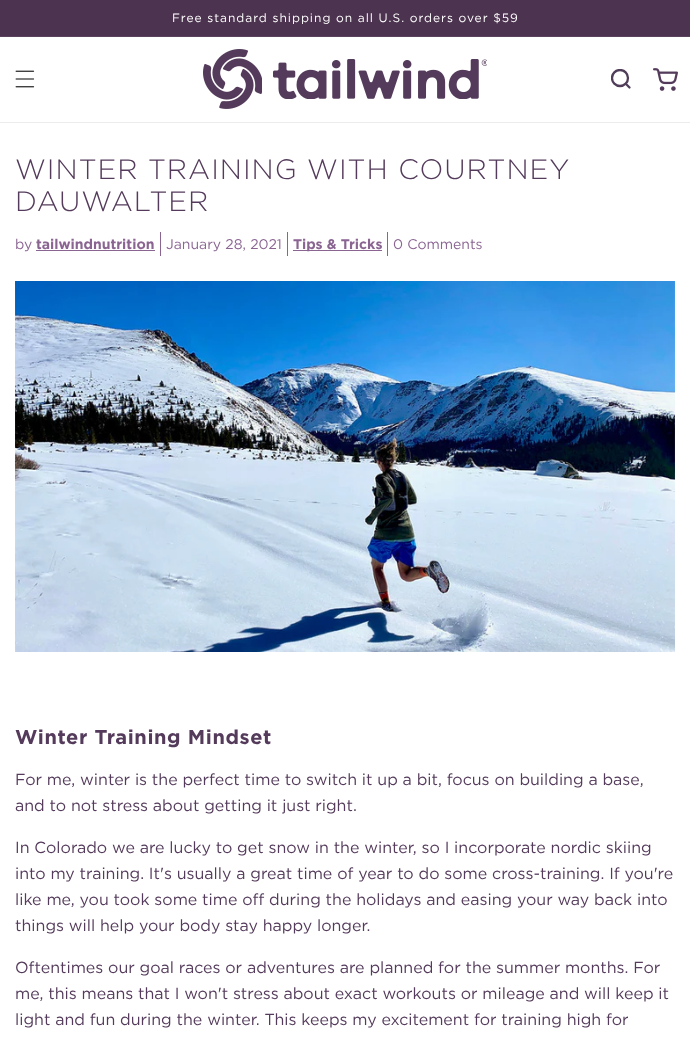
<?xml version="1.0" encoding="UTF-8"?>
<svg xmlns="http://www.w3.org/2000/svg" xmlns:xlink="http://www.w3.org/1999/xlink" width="690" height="1043">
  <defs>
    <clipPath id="clip1"><rect x="611" y="69" width="20" height="20" /></clipPath>
  </defs>
  <rect width="100%" height="100%" fill="#ffffff" />
  <rect width="690" height="36" fill="#4c334f" />
  <rect y="36" width="690" height="1" fill="#5a435d" />
  <rect y="122" width="690" height="1" fill="#ececec" />
  <image x="15" y="70" width="20" height="18" xlink:href="image1.png" />
  <image x="203" y="49" width="59" height="60" xlink:href="image2.png" />
  <image x="273" y="59" width="214" height="40" xlink:href="image3.png" />
  <g clip-path="url(#clip1)">
    <circle cx="620" cy="78" r="8" fill="none" stroke="#503d59" stroke-width="2.3" />
  </g>
  <path d="M 629.5 87.5 l -3.5 -3.5" fill="none" stroke="#503d59" stroke-width="2.3" stroke-linecap="round" />
  <image x="653" y="68" width="25" height="23" xlink:href="image4.png" />
  <rect x="36" y="250" width="119" height="1" fill="#8a6592" />
  <rect x="160" y="232" width="1" height="24" fill="#8a6592" />
  <rect x="287" y="232" width="1" height="24" fill="#8a6592" />
  <rect x="293" y="250" width="89" height="1" fill="#8a6592" />
  <rect x="387" y="232" width="1" height="24" fill="#8a6592" />
  <image x="15" y="281" width="660" height="371" xlink:href="image5.png" />
  <text x="172" y="22" style="font-family: 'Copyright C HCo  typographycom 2'; font-size: 12px; font-weight: 300; letter-spacing: 1px; fill: #ffffff">Free standard shipping on all U.S. orders over $59</text>
  <text x="15" y="179" style="font-family: 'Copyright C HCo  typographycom'; font-size: 28px; font-weight: 300; letter-spacing: 1px; fill: #543b5b">WINTER TRAINING WITH COURTNEY</text>
  <text x="15" y="211" style="font-family: 'Copyright C HCo  typographycom'; font-size: 28px; font-weight: 300; letter-spacing: 1px; fill: #543b5b">DAUWALTER</text>
  <text x="15" y="249" style="font-family: 'Copyright C HCo  typographycom 2'; font-size: 14px; font-weight: 300; fill: #8a6592">by</text>
  <text x="36" y="249" style="font-family: 'Copyright C HCo  typographycom'; font-size: 14px; fill: #8a6592">tailwindnutrition</text>
  <text x="166" y="249" style="font-family: 'Copyright C HCo  typographycom 2'; font-size: 14px; font-weight: 300; fill: #8a6592">January 28, 2021</text>
  <text x="293" y="249" style="font-family: 'Copyright C HCo  typographycom'; font-size: 14px; fill: #8a6592">Tips &amp; Tricks</text>
  <text x="393" y="249" style="font-family: 'Copyright C HCo  typographycom 2'; font-size: 14px; font-weight: 300; fill: #8a6592">0 Comments</text>
  <text x="15" y="744" style="font-family: 'Copyright C HCo  typographycom'; font-size: 20px; letter-spacing: 0.6px; fill: #543b5b">Winter Training Mindset</text>
  <text x="15" y="785" style="font-family: 'Copyright C HCo  typographycom 2'; font-size: 16px; font-weight: 300; fill: #543b5b">For me, winter is the perfect time to switch it up a bit, focus on building a base,</text>
  <text x="15" y="811" style="font-family: 'Copyright C HCo  typographycom 2'; font-size: 16px; font-weight: 300; fill: #543b5b">and to not stress about getting it just right.</text>
  <text x="15" y="853" style="font-family: 'Copyright C HCo  typographycom 2'; font-size: 16px; font-weight: 300; fill: #543b5b">In Colorado we are lucky to get snow in the winter, so I incorporate nordic skiing</text>
  <text x="15" y="879" style="font-family: 'Copyright C HCo  typographycom 2'; font-size: 16px; font-weight: 300; fill: #543b5b">into my training. It's usually a great time of year to do some cross-training. If you're</text>
  <text x="15" y="905" style="font-family: 'Copyright C HCo  typographycom 2'; font-size: 16px; font-weight: 300; fill: #543b5b">like me, you took some time off during the holidays and easing your way back into</text>
  <text x="15" y="931" style="font-family: 'Copyright C HCo  typographycom 2'; font-size: 16px; font-weight: 300; fill: #543b5b">things will help your body stay happy longer.</text>
  <text x="15" y="973" style="font-family: 'Copyright C HCo  typographycom 2'; font-size: 16px; font-weight: 300; fill: #543b5b">Oftentimes our goal races or adventures are planned for the summer months. For</text>
  <text x="15" y="999" style="font-family: 'Copyright C HCo  typographycom 2'; font-size: 16px; font-weight: 300; fill: #543b5b">me, this means that I won't stress about exact workouts or mileage and will keep it</text>
  <text x="15" y="1025" style="font-family: 'Copyright C HCo  typographycom 2'; font-size: 16px; font-weight: 300; fill: #543b5b">light and fun during the winter. This keeps my excitement for training high for</text>
</svg>
